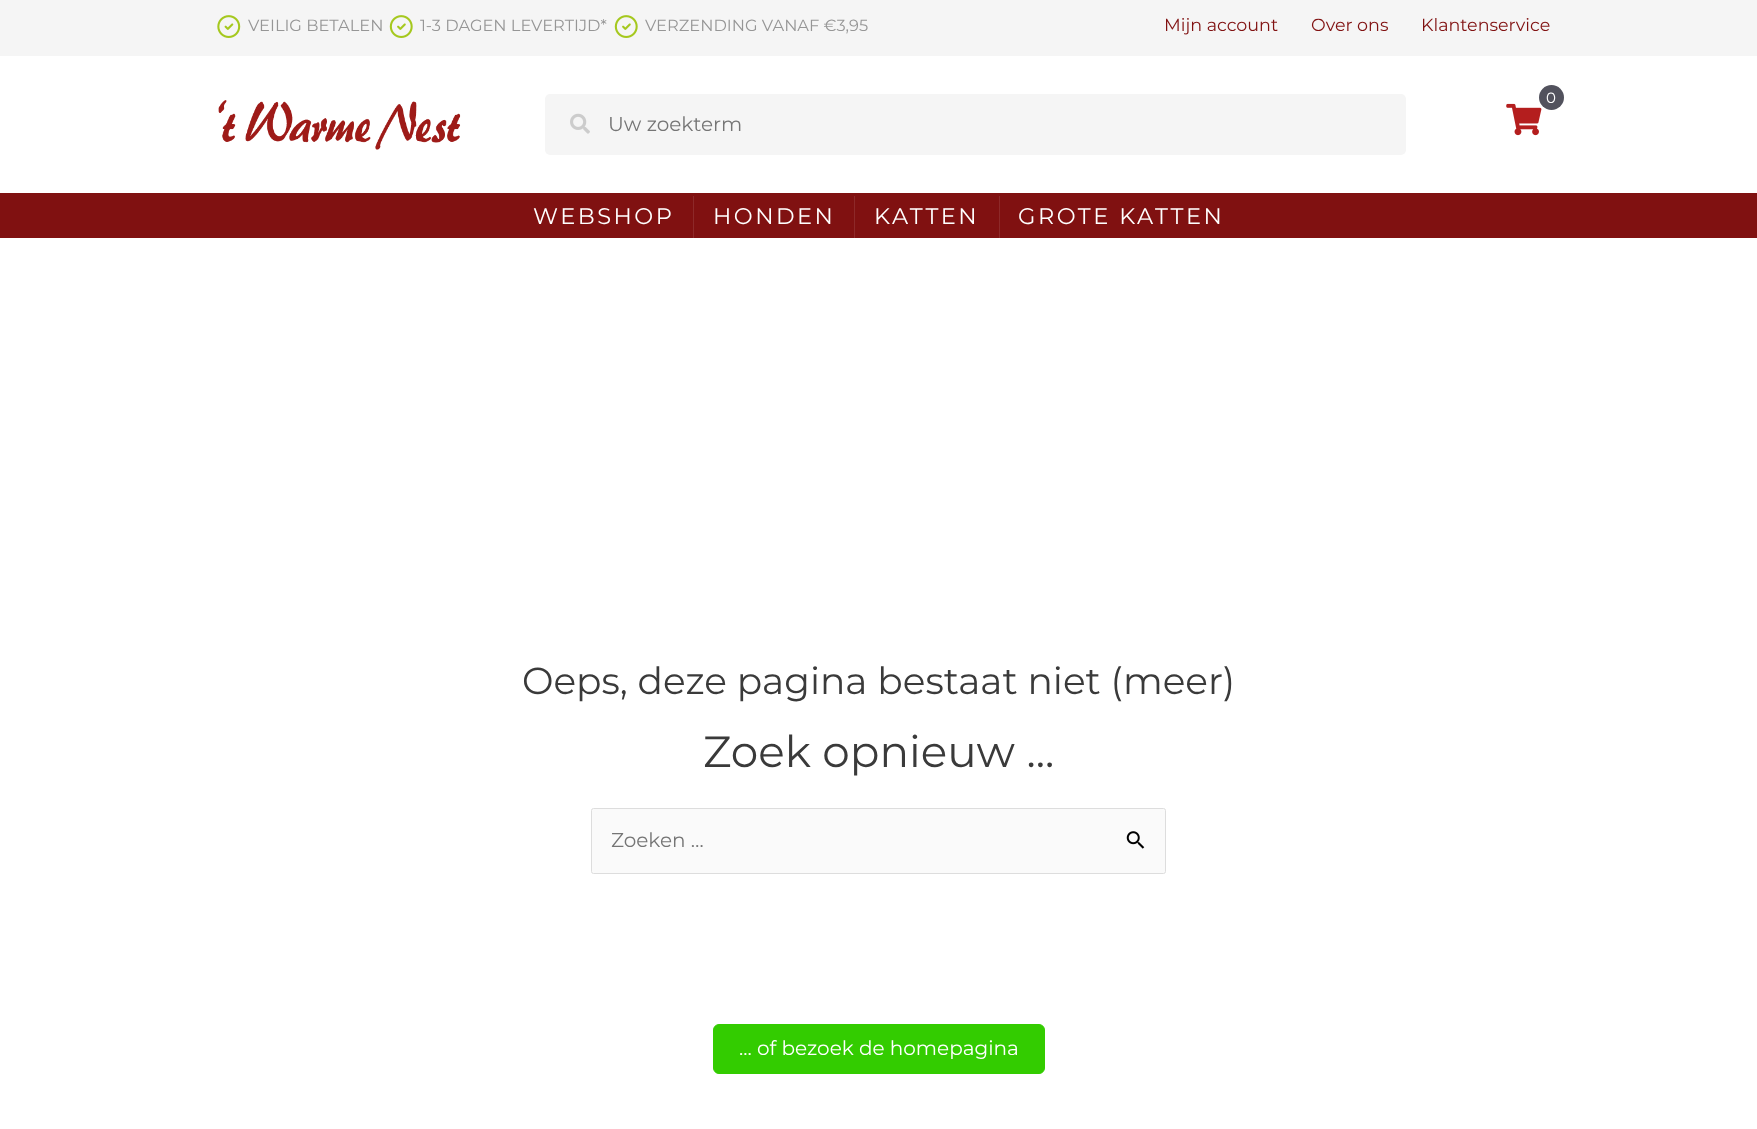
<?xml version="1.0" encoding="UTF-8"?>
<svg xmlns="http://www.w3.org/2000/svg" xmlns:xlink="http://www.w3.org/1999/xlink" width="1757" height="1129">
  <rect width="100%" height="100%" fill="#ffffff" />
  <rect width="1757" height="56" fill="#f5f5f5" />
  <image x="217" y="15" width="24" height="23" xlink:href="image1.png" />
  <image x="389" y="15" width="24" height="23" xlink:href="image2.png" />
  <image x="614" y="15" width="24" height="23" xlink:href="image2.png" />
  <image x="1506" y="103" width="36" height="33" xlink:href="image3.png" />
  <circle cx="1551.5" cy="97.5" r="12.5" fill="#52525d" />
  <image x="218" y="100" width="243" height="50" xlink:href="image4.png" />
  <rect x="545" y="94" width="861" height="61" rx="5" fill="#f5f5f5" />
  <image x="570" y="113" width="20" height="21" xlink:href="image5.png" />
  <rect y="193" width="1757" height="45" fill="#801111" />
  <rect x="693" y="196" width="1" height="42" fill="#8d2929" />
  <rect x="854" y="196" width="1" height="42" fill="#8d2929" />
  <rect x="999" y="196" width="1" height="42" fill="#8d2929" />
  <rect x="591.5" y="808.5" width="574" height="65" rx="2" fill="#fafafa" stroke="#dddddd" />
  <image x="1126" y="831" width="19" height="18" xlink:href="image6.png" />
  <rect x="713.5" y="1024.5" width="331" height="49" rx="5.5" fill="#33cc00" stroke="#33cc00" />
  <text x="248" y="31" style="font-family: Montserrat; font-size: 16.25px; font-weight: 100; fill: #969696">VEILIG BETALEN</text>
  <text x="420" y="31" style="font-family: Montserrat; font-size: 16.25px; font-weight: 100; fill: #969696">1-3 DAGEN LEVERTIJD*</text>
  <text x="645" y="31" style="font-family: Montserrat; font-size: 16.25px; font-weight: 100; fill: #969696">VERZENDING VANAF €3,95</text>
  <text x="1164" y="31" style="font-family: Montserrat; font-size: 17.5px; font-weight: 100; fill: #801111">Mijn account</text>
  <text x="1311" y="31" style="font-family: Montserrat; font-size: 17.5px; font-weight: 100; fill: #801111">Over ons</text>
  <text x="1421" y="31" style="font-family: Montserrat; font-size: 17.5px; font-weight: 100; fill: #801111">Klantenservice</text>
  <text x="1546" y="103" style="font-family: Montserrat; font-size: 15px; font-weight: 100; fill: #ffffff">0</text>
  <text x="608" y="131" style="font-family: Montserrat; font-size: 20px; font-weight: 100; fill: #757575">Uw zoekterm</text>
  <text x="533" y="224" style="font-family: Montserrat; font-size: 22.5px; font-weight: 100; letter-spacing: 2.5px; fill: #ffffff">WEBSHOP</text>
  <text x="713" y="224" style="font-family: Montserrat; font-size: 22.5px; font-weight: 100; letter-spacing: 2.5px; fill: #ffffff">HONDEN</text>
  <text x="874" y="224" style="font-family: Montserrat; font-size: 22.5px; font-weight: 100; letter-spacing: 2.5px; fill: #ffffff">KATTEN</text>
  <text x="1018" y="224" style="font-family: Montserrat; font-size: 22.5px; font-weight: 100; letter-spacing: 2.5px; fill: #ffffff">GROTE KATTEN</text>
  <text x="522" y="694" style="font-family: Montserrat; font-size: 37.5px; font-weight: 100; fill: #3a3a3a">Oeps, deze pagina bestaat niet (meer)</text>
  <text x="703" y="767" style="font-family: Montserrat; font-size: 43.75px; font-weight: 100; fill: #3a3a3a">Zoek opnieuw ...</text>
  <text x="611" y="847" style="font-family: Montserrat; font-size: 20px; font-weight: 100; fill: #757575">Zoeken …</text>
  <text x="739" y="1055" style="font-family: Montserrat; font-size: 20px; font-weight: 100; fill: #ffffff">... of bezoek de homepagina</text>
</svg>
